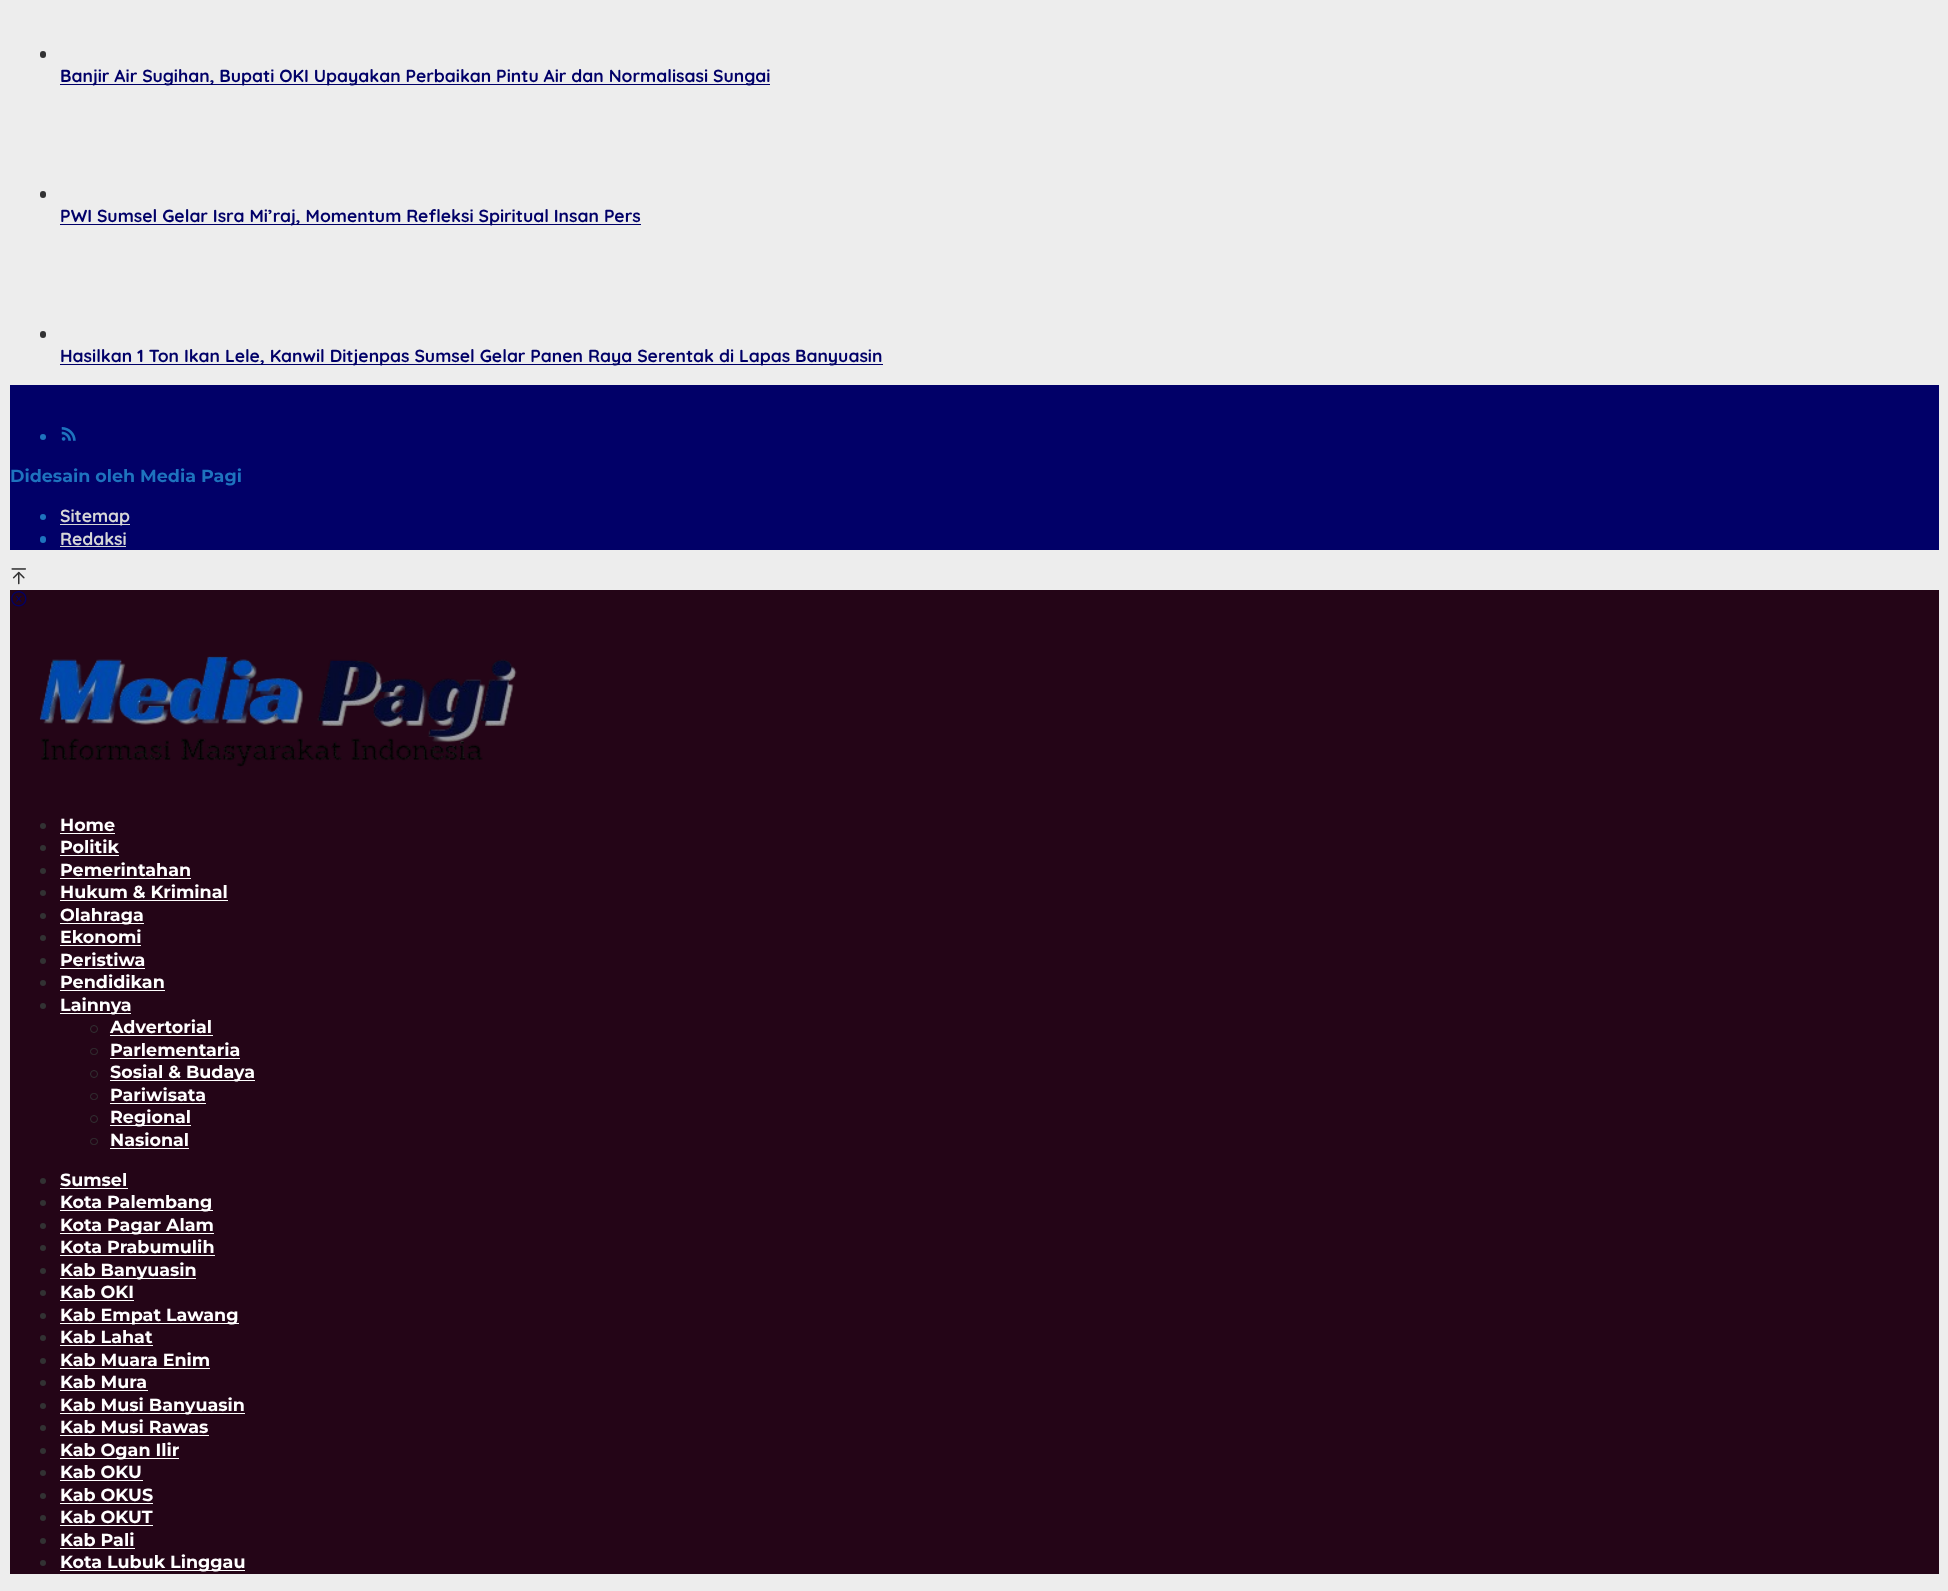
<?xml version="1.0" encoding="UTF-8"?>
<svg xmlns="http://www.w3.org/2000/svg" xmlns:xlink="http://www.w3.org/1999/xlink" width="1948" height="1591">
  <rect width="100%" height="100%" fill="#ededed" />
  <rect x="40" y="51" width="6" height="7" rx="3" fill="#323233" />
  <rect x="60" y="84" width="710" height="1" fill="#010068" />
  <rect x="40" y="191" width="6" height="7" rx="3" fill="#323233" />
  <rect x="60" y="224" width="581" height="1" fill="#010068" />
  <rect x="40" y="331" width="6" height="7" rx="3" fill="#323233" />
  <rect x="60" y="364" width="823" height="1" fill="#010068" />
  <rect x="10" y="385" width="1929" height="165" fill="#010068" />
  <circle cx="43" cy="437" r="3" fill="#1e73be" />
  <image x="61" y="427" width="15" height="14" xlink:href="image1.png" />
  <circle cx="43" cy="517" r="3" fill="#1e73be" />
  <rect x="60" y="524" width="70" height="1" fill="#d7d7d7" />
  <rect x="40" y="536" width="6" height="7" rx="3" fill="#1e73be" />
  <rect x="60" y="546" width="66" height="1" fill="#d7d7d7" />
  <image x="11" y="568" width="15" height="17" xlink:href="image2.png" />
  <rect x="10" y="590" width="1929" height="984" fill="#240517" />
  <image x="11" y="591" width="16" height="16" xlink:href="image3.png" />
  <image x="39" y="656" width="478" height="111" xlink:href="image4.png" />
  <circle cx="43" cy="826" r="3" fill="#323233" />
  <rect x="60" y="833" width="55" height="1" fill="#ffffff" />
  <circle cx="43" cy="848" r="3" fill="#323233" />
  <rect x="60" y="855" width="59" height="1" fill="#ffffff" />
  <circle cx="43" cy="871" r="3" fill="#323233" />
  <rect x="60" y="878" width="131" height="1" fill="#ffffff" />
  <circle cx="43" cy="893" r="3" fill="#323233" />
  <rect x="60" y="900" width="168" height="1" fill="#ffffff" />
  <circle cx="43" cy="916" r="3" fill="#323233" />
  <rect x="60" y="923" width="84" height="1" fill="#ffffff" />
  <circle cx="43" cy="938" r="3" fill="#323233" />
  <rect x="60" y="945" width="81" height="1" fill="#ffffff" />
  <circle cx="43" cy="961" r="3" fill="#323233" />
  <rect x="60" y="968" width="85" height="1" fill="#ffffff" />
  <circle cx="43" cy="983" r="3" fill="#323233" />
  <rect x="60" y="990" width="105" height="1" fill="#ffffff" />
  <circle cx="43" cy="1006" r="3" fill="#323233" />
  <rect x="60" y="1013" width="71" height="1" fill="#ffffff" />
  <circle cx="94" cy="1029" r="3.5" fill="none" stroke="#323233" />
  <rect x="110" y="1035" width="103" height="1" fill="#ffffff" />
  <rect x="90.5" y="1048.5" width="7" height="6" rx="3" fill="none" stroke="#323233" />
  <rect x="110" y="1058" width="130" height="1" fill="#ffffff" />
  <circle cx="94" cy="1074" r="3.5" fill="none" stroke="#323233" />
  <rect x="110" y="1080" width="145" height="1" fill="#ffffff" />
  <rect x="90.5" y="1093.5" width="7" height="6" rx="3" fill="none" stroke="#323233" />
  <rect x="110" y="1103" width="96" height="1" fill="#ffffff" />
  <circle cx="94" cy="1119" r="3.5" fill="none" stroke="#323233" />
  <rect x="110" y="1125" width="81" height="1" fill="#ffffff" />
  <rect x="90.5" y="1138.5" width="7" height="6" rx="3" fill="none" stroke="#323233" />
  <rect x="110" y="1148" width="79" height="1" fill="#ffffff" />
  <circle cx="43" cy="1181" r="3" fill="#323233" />
  <rect x="60" y="1188" width="68" height="1" fill="#ffffff" />
  <circle cx="43" cy="1203" r="3" fill="#323233" />
  <rect x="60" y="1210" width="153" height="1" fill="#ffffff" />
  <circle cx="43" cy="1226" r="3" fill="#323233" />
  <rect x="60" y="1233" width="154" height="1" fill="#ffffff" />
  <circle cx="43" cy="1248" r="3" fill="#323233" />
  <rect x="60" y="1255" width="155" height="1" fill="#ffffff" />
  <circle cx="43" cy="1271" r="3" fill="#323233" />
  <rect x="60" y="1278" width="136" height="1" fill="#ffffff" />
  <circle cx="43" cy="1293" r="3" fill="#323233" />
  <rect x="60" y="1300" width="74" height="1" fill="#ffffff" />
  <circle cx="43" cy="1316" r="3" fill="#323233" />
  <rect x="60" y="1323" width="179" height="1" fill="#ffffff" />
  <circle cx="43" cy="1338" r="3" fill="#323233" />
  <rect x="60" y="1345" width="93" height="1" fill="#ffffff" />
  <circle cx="43" cy="1361" r="3" fill="#323233" />
  <rect x="60" y="1368" width="150" height="1" fill="#ffffff" />
  <circle cx="43" cy="1383" r="3" fill="#323233" />
  <rect x="60" y="1390" width="88" height="1" fill="#ffffff" />
  <circle cx="43" cy="1406" r="3" fill="#323233" />
  <rect x="60" y="1413" width="185" height="1" fill="#ffffff" />
  <circle cx="43" cy="1428" r="3" fill="#323233" />
  <rect x="60" y="1435" width="149" height="1" fill="#ffffff" />
  <circle cx="43" cy="1451" r="3" fill="#323233" />
  <rect x="60" y="1458" width="119" height="1" fill="#ffffff" />
  <circle cx="43" cy="1473" r="3" fill="#323233" />
  <rect x="60" y="1480" width="83" height="1" fill="#ffffff" />
  <circle cx="43" cy="1496" r="3" fill="#323233" />
  <rect x="60" y="1503" width="93" height="1" fill="#ffffff" />
  <circle cx="43" cy="1518" r="3" fill="#323233" />
  <rect x="60" y="1525" width="93" height="1" fill="#ffffff" />
  <circle cx="43" cy="1541" r="3" fill="#323233" />
  <rect x="60" y="1548" width="75" height="1" fill="#ffffff" />
  <circle cx="43" cy="1563" r="3" fill="#323233" />
  <rect x="60" y="1570" width="185" height="1" fill="#ffffff" />
  <text x="60" y="82" style="font-family: Quicksand; font-size: 17.5px; font-weight: bold; fill: #010068">Banjir Air Sugihan, Bupati OKI Upayakan Perbaikan Pintu Air dan Normalisasi Sungai</text>
  <text x="60" y="222" style="font-family: Quicksand; font-size: 17.5px; font-weight: bold; fill: #010068">PWI Sumsel Gelar Isra Mi’raj, Momentum Refleksi Spiritual Insan Pers</text>
  <text x="60" y="362" style="font-family: Quicksand; font-size: 17.5px; font-weight: bold; fill: #010068">Hasilkan 1 Ton Ikan Lele, Kanwil Ditjenpas Sumsel Gelar Panen Raya Serentak di Lapas Banyuasin</text>
  <text x="10" y="482" style="font-family: Montserrat; font-size: 17.5px; font-weight: bold; fill: #1e73be">Didesain oleh Media Pagi</text>
  <text x="60" y="522" style="font-family: Quicksand; font-size: 17.5px; font-weight: bold; fill: #d7d7d7">Sitemap</text>
  <text x="60" y="545" style="font-family: Quicksand; font-size: 17.5px; font-weight: bold; fill: #d7d7d7">Redaksi</text>
  <text x="60" y="831" style="font-family: Montserrat; font-size: 17.5px; font-weight: bold; fill: #ffffff">Home</text>
  <text x="60" y="853" style="font-family: Montserrat; font-size: 17.5px; font-weight: bold; fill: #ffffff">Politik</text>
  <text x="60" y="876" style="font-family: Montserrat; font-size: 17.5px; font-weight: bold; fill: #ffffff">Pemerintahan</text>
  <text x="60" y="898" style="font-family: Montserrat; font-size: 17.5px; font-weight: bold; fill: #ffffff">Hukum &amp; Kriminal</text>
  <text x="60" y="921" style="font-family: Montserrat; font-size: 17.5px; font-weight: bold; fill: #ffffff">Olahraga</text>
  <text x="60" y="943" style="font-family: Montserrat; font-size: 17.5px; font-weight: bold; fill: #ffffff">Ekonomi</text>
  <text x="60" y="966" style="font-family: Montserrat; font-size: 17.5px; font-weight: bold; fill: #ffffff">Peristiwa</text>
  <text x="60" y="988" style="font-family: Montserrat; font-size: 17.5px; font-weight: bold; fill: #ffffff">Pendidikan</text>
  <text x="60" y="1011" style="font-family: Montserrat; font-size: 17.5px; font-weight: bold; fill: #ffffff">Lainnya</text>
  <text x="110" y="1033" style="font-family: Montserrat; font-size: 17.5px; font-weight: bold; fill: #ffffff">Advertorial</text>
  <text x="110" y="1056" style="font-family: Montserrat; font-size: 17.5px; font-weight: bold; fill: #ffffff">Parlementaria</text>
  <text x="110" y="1078" style="font-family: Montserrat; font-size: 17.5px; font-weight: bold; fill: #ffffff">Sosial &amp; Budaya</text>
  <text x="110" y="1101" style="font-family: Montserrat; font-size: 17.5px; font-weight: bold; fill: #ffffff">Pariwisata</text>
  <text x="110" y="1123" style="font-family: Montserrat; font-size: 17.5px; font-weight: bold; fill: #ffffff">Regional</text>
  <text x="110" y="1146" style="font-family: Montserrat; font-size: 17.5px; font-weight: bold; fill: #ffffff">Nasional</text>
  <text x="60" y="1186" style="font-family: Montserrat; font-size: 17.5px; font-weight: bold; fill: #ffffff">Sumsel</text>
  <text x="60" y="1208" style="font-family: Montserrat; font-size: 17.5px; font-weight: bold; fill: #ffffff">Kota Palembang</text>
  <text x="60" y="1231" style="font-family: Montserrat; font-size: 17.5px; font-weight: bold; fill: #ffffff">Kota Pagar Alam</text>
  <text x="60" y="1253" style="font-family: Montserrat; font-size: 17.5px; font-weight: bold; fill: #ffffff">Kota Prabumulih</text>
  <text x="60" y="1276" style="font-family: Montserrat; font-size: 17.5px; font-weight: bold; fill: #ffffff">Kab Banyuasin</text>
  <text x="60" y="1298" style="font-family: Montserrat; font-size: 17.5px; font-weight: bold; fill: #ffffff">Kab OKI</text>
  <text x="60" y="1321" style="font-family: Montserrat; font-size: 17.5px; font-weight: bold; fill: #ffffff">Kab Empat Lawang</text>
  <text x="60" y="1343" style="font-family: Montserrat; font-size: 17.5px; font-weight: bold; fill: #ffffff">Kab Lahat</text>
  <text x="60" y="1366" style="font-family: Montserrat; font-size: 17.5px; font-weight: bold; fill: #ffffff">Kab Muara Enim</text>
  <text x="60" y="1388" style="font-family: Montserrat; font-size: 17.5px; font-weight: bold; fill: #ffffff">Kab Mura</text>
  <text x="60" y="1411" style="font-family: Montserrat; font-size: 17.5px; font-weight: bold; fill: #ffffff">Kab Musi Banyuasin</text>
  <text x="60" y="1433" style="font-family: Montserrat; font-size: 17.5px; font-weight: bold; fill: #ffffff">Kab Musi Rawas</text>
  <text x="60" y="1456" style="font-family: Montserrat; font-size: 17.5px; font-weight: bold; fill: #ffffff">Kab Ogan Ilir</text>
  <text x="60" y="1478" style="font-family: Montserrat; font-size: 17.5px; font-weight: bold; fill: #ffffff">Kab OKU</text>
  <text x="60" y="1501" style="font-family: Montserrat; font-size: 17.5px; font-weight: bold; fill: #ffffff">Kab OKUS</text>
  <text x="60" y="1523" style="font-family: Montserrat; font-size: 17.5px; font-weight: bold; fill: #ffffff">Kab OKUT</text>
  <text x="60" y="1546" style="font-family: Montserrat; font-size: 17.5px; font-weight: bold; fill: #ffffff">Kab Pali</text>
  <text x="60" y="1568" style="font-family: Montserrat; font-size: 17.5px; font-weight: bold; fill: #ffffff">Kota Lubuk Linggau</text>
</svg>
